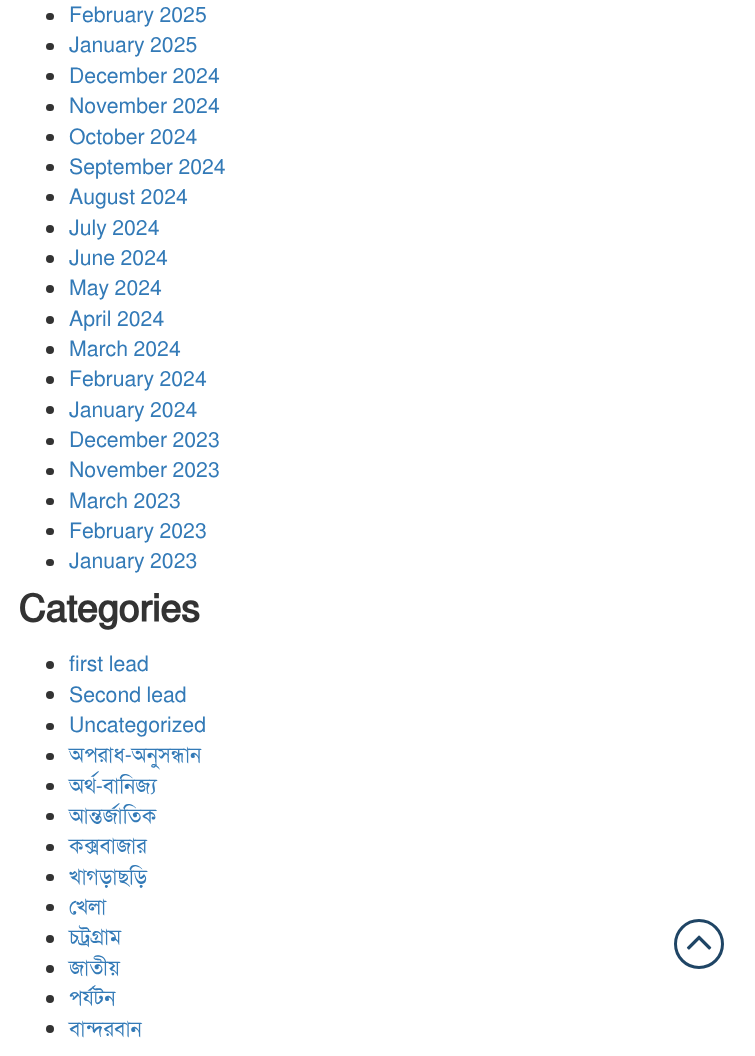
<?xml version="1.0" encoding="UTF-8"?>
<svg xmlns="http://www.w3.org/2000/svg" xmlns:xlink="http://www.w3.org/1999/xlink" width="755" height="1056">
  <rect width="100%" height="100%" fill="#ffffff" />
  <rect x="46" y="13" width="8" height="7" rx="3.5" fill="#333333" />
  <rect x="46" y="43" width="8" height="7" rx="3.5" fill="#333333" />
  <rect x="46" y="73" width="8" height="7" rx="3.5" fill="#333333" />
  <rect x="46" y="104" width="8" height="7" rx="3.5" fill="#333333" />
  <rect x="46" y="134" width="8" height="7" rx="3.5" fill="#333333" />
  <rect x="46" y="164" width="8" height="7" rx="3.5" fill="#333333" />
  <rect x="46" y="194" width="8" height="7" rx="3.5" fill="#333333" />
  <circle cx="50" cy="229" r="4" fill="#333333" />
  <circle cx="50" cy="259" r="4" fill="#333333" />
  <circle cx="50" cy="289" r="4" fill="#333333" />
  <circle cx="50" cy="320" r="4" fill="#333333" />
  <circle cx="50" cy="350" r="4" fill="#333333" />
  <circle cx="50" cy="380" r="4" fill="#333333" />
  <circle cx="50" cy="410" r="4" fill="#333333" />
  <rect x="46" y="438" width="8" height="7" rx="3.5" fill="#333333" />
  <rect x="46" y="468" width="8" height="7" rx="3.5" fill="#333333" />
  <rect x="46" y="498" width="8" height="7" rx="3.5" fill="#333333" />
  <rect x="46" y="528" width="8" height="7" rx="3.5" fill="#333333" />
  <rect x="46" y="559" width="8" height="7" rx="3.5" fill="#333333" />
  <circle cx="50" cy="665" r="4" fill="#333333" />
  <circle cx="50" cy="695" r="4" fill="#333333" />
  <rect x="46" y="723" width="8" height="7" rx="3.5" fill="#333333" />
  <rect x="46" y="753" width="8" height="7" rx="3.5" fill="#333333" />
  <rect x="46" y="783" width="8" height="7" rx="3.5" fill="#333333" />
  <rect x="46" y="813" width="8" height="7" rx="3.5" fill="#333333" />
  <rect x="46" y="844" width="8" height="7" rx="3.5" fill="#333333" />
  <rect x="46" y="874" width="8" height="7" rx="3.5" fill="#333333" />
  <rect x="46" y="904" width="8" height="7" rx="3.5" fill="#333333" />
  <circle cx="50" cy="939" r="4" fill="#333333" />
  <circle cx="50" cy="969" r="4" fill="#333333" />
  <circle cx="50" cy="999" r="4" fill="#333333" />
  <circle cx="50" cy="1029" r="4" fill="#333333" />
  <circle cx="699" cy="944" r="23.5" fill="none" stroke="#1f4565" stroke-width="3" />
  <image x="686" y="935" width="26" height="15" xlink:href="image1.png" />
  <text x="69" y="22" style="font-family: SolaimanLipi; font-size: 21.25px; fill: #337ab7">February 2025</text>
  <text x="69" y="52" style="font-family: SolaimanLipi; font-size: 21.25px; fill: #337ab7">January 2025</text>
  <text x="69" y="83" style="font-family: SolaimanLipi; font-size: 21.25px; fill: #337ab7">December 2024</text>
  <text x="69" y="113" style="font-family: SolaimanLipi; font-size: 21.25px; fill: #337ab7">November 2024</text>
  <text x="69" y="144" style="font-family: SolaimanLipi; font-size: 21.25px; fill: #337ab7">October 2024</text>
  <text x="69" y="174" style="font-family: SolaimanLipi; font-size: 21.25px; fill: #337ab7">September 2024</text>
  <text x="69" y="204" style="font-family: SolaimanLipi; font-size: 21.25px; fill: #337ab7">August 2024</text>
  <text x="69" y="235" style="font-family: SolaimanLipi; font-size: 21.25px; fill: #337ab7">July 2024</text>
  <text x="69" y="265" style="font-family: SolaimanLipi; font-size: 21.25px; fill: #337ab7">June 2024</text>
  <text x="69" y="295" style="font-family: SolaimanLipi; font-size: 21.25px; fill: #337ab7">May 2024</text>
  <text x="69" y="326" style="font-family: SolaimanLipi; font-size: 21.25px; fill: #337ab7">April 2024</text>
  <text x="69" y="356" style="font-family: SolaimanLipi; font-size: 21.25px; fill: #337ab7">March 2024</text>
  <text x="69" y="386" style="font-family: SolaimanLipi; font-size: 21.25px; fill: #337ab7">February 2024</text>
  <text x="69" y="417" style="font-family: SolaimanLipi; font-size: 21.25px; fill: #337ab7">January 2024</text>
  <text x="69" y="447" style="font-family: SolaimanLipi; font-size: 21.25px; fill: #337ab7">December 2023</text>
  <text x="69" y="477" style="font-family: SolaimanLipi; font-size: 21.25px; fill: #337ab7">November 2023</text>
  <text x="69" y="508" style="font-family: SolaimanLipi; font-size: 21.25px; fill: #337ab7">March 2023</text>
  <text x="69" y="538" style="font-family: SolaimanLipi; font-size: 21.25px; fill: #337ab7">February 2023</text>
  <text x="69" y="568" style="font-family: SolaimanLipi; font-size: 21.25px; fill: #337ab7">January 2023</text>
  <text x="19" y="621" style="font-family: SolaimanLipi; font-size: 37.5px; font-weight: bold; fill: #333333">Categories</text>
  <text x="69" y="671" style="font-family: SolaimanLipi; font-size: 21.25px; fill: #337ab7">first lead</text>
  <text x="69" y="702" style="font-family: SolaimanLipi; font-size: 21.25px; fill: #337ab7">Second lead</text>
  <text x="69" y="732" style="font-family: SolaimanLipi; font-size: 21.25px; fill: #337ab7">Uncategorized</text>
  <text x="69" y="762" style="font-family: SolaimanLipi; font-size: 21.25px; fill: #337ab7">অপরাধ-অনুসন্ধান</text>
  <text x="69" y="793" style="font-family: SolaimanLipi; font-size: 21.25px; fill: #337ab7">অর্থ-বানিজ্য</text>
  <text x="69" y="823" style="font-family: SolaimanLipi; font-size: 21.25px; fill: #337ab7">আন্তর্জাতিক</text>
  <text x="69" y="853" style="font-family: SolaimanLipi; font-size: 21.25px; fill: #337ab7">কক্সবাজার</text>
  <text x="69" y="884" style="font-family: SolaimanLipi; font-size: 21.25px; fill: #337ab7">খাগড়াছড়ি</text>
  <text x="69" y="914" style="font-family: SolaimanLipi; font-size: 21.25px; fill: #337ab7">খেলা</text>
  <text x="69" y="944" style="font-family: SolaimanLipi; font-size: 21.25px; fill: #337ab7">চট্রগ্রাম</text>
  <text x="69" y="975" style="font-family: SolaimanLipi; font-size: 21.25px; fill: #337ab7">জাতীয়</text>
  <text x="69" y="1005" style="font-family: SolaimanLipi; font-size: 21.25px; fill: #337ab7">পর্যটন</text>
  <text x="69" y="1036" style="font-family: SolaimanLipi; font-size: 21.25px; fill: #337ab7">বান্দরবান</text>
</svg>
